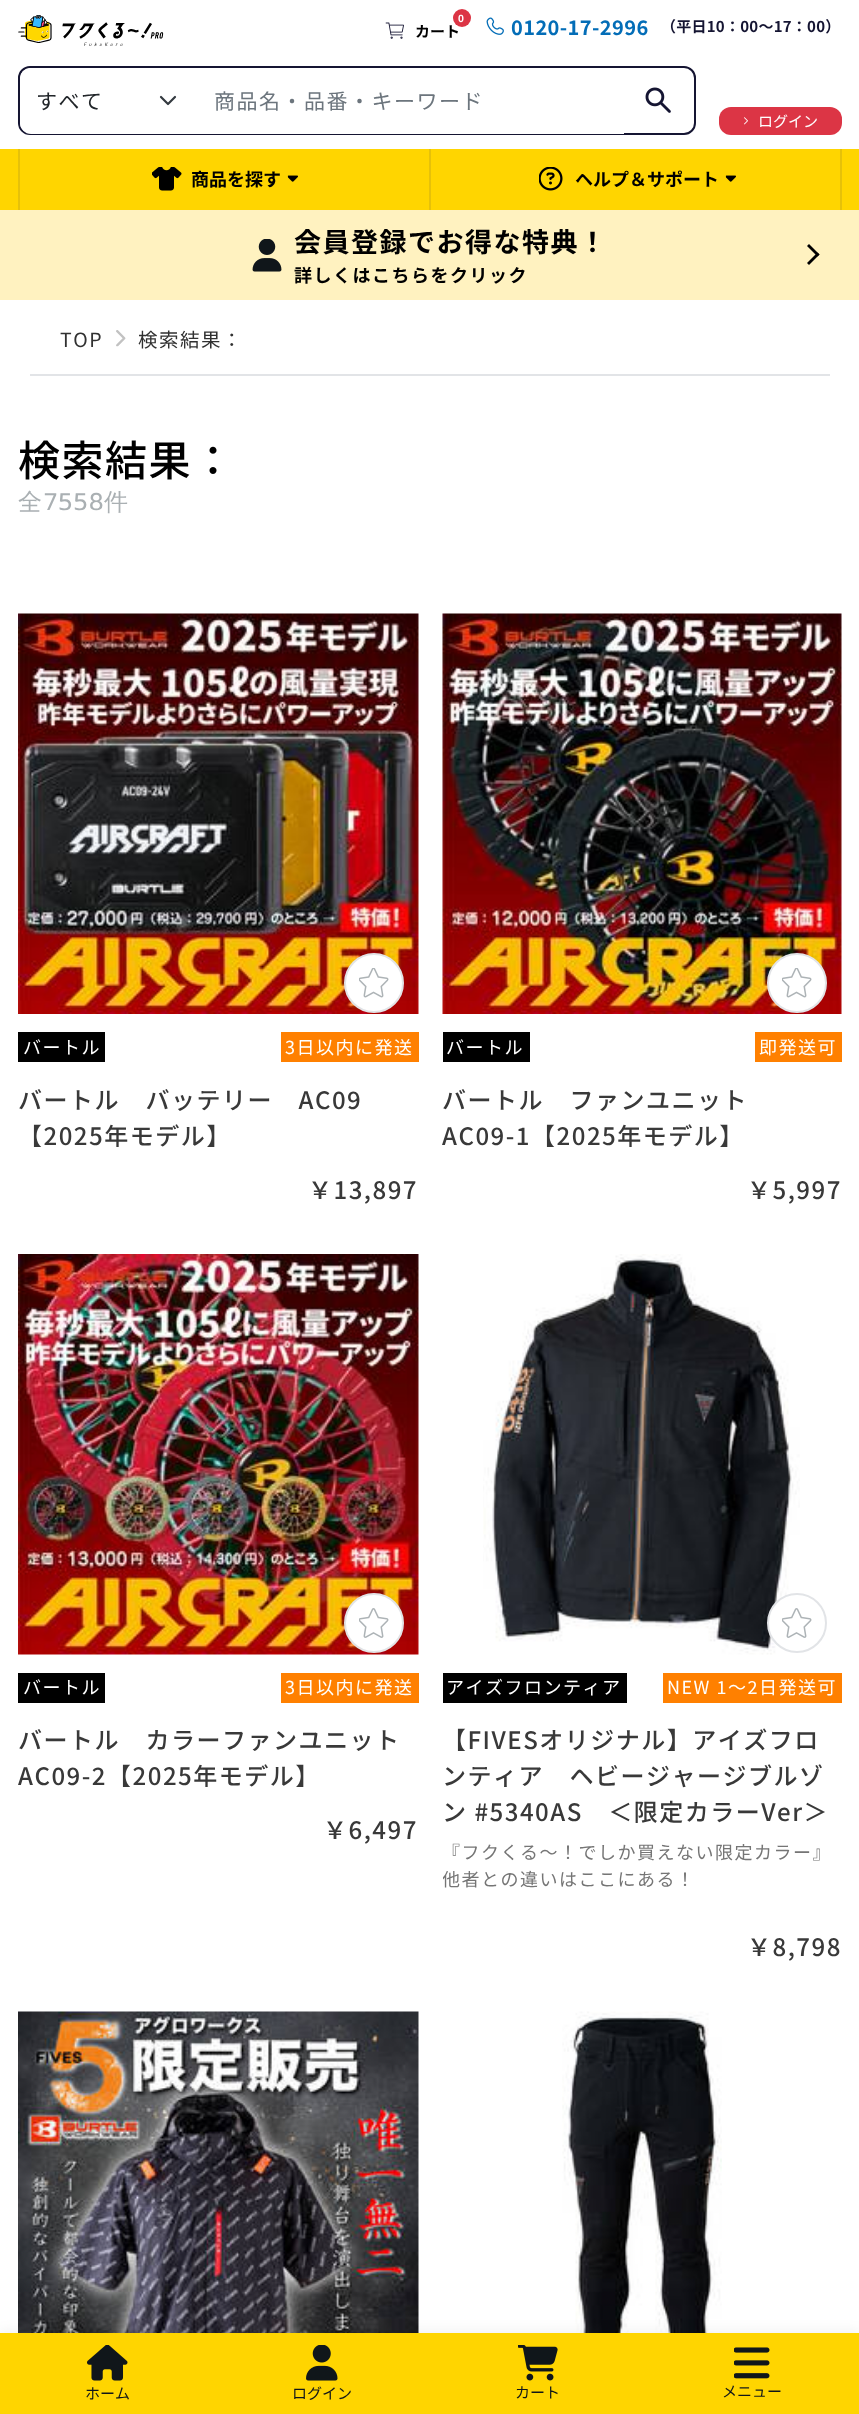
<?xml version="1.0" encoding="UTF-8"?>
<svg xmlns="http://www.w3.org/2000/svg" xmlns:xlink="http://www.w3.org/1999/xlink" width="859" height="2414">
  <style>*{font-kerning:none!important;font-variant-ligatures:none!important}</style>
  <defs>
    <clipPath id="clip1"><rect x="443" y="1838" width="399" height="81" /></clipPath>
  </defs>
  <rect width="100%" height="100%" fill="#ffffff" />
  <image x="18" y="15" width="146" height="32" xlink:href="image1.png" />
  <image x="385" y="22" width="19" height="17" xlink:href="image2.png" />
  <image x="486" y="17" width="18" height="18" xlink:href="image3.png" />
  <rect x="19" y="67" width="676" height="67" rx="11" fill="none" stroke="#151532" stroke-width="2" />
  <path d="M 31 68 h 167 v 66 h -167 c -6 0 -11 -5 -11 -11 v -44 c 0 -6 5 -11 11 -11 z" fill="#ffffff" />
  <path d="M 161 97 l 7 7 l 7 -7" fill="none" stroke="#343a40" stroke-width="2.2" stroke-linecap="round" stroke-linejoin="round" />
  <rect x="198" y="133" width="426" height="1" fill="#ffffff" />
  <image x="645" y="87" width="26" height="26" xlink:href="image4.png" />
  <rect x="719" y="107" width="123" height="28" rx="12" fill="#dc3545" />
  <image x="744" y="117" width="4" height="8" xlink:href="image5.png" />
  <rect y="149" width="859" height="61" fill="#ffd500" />
  <rect x="429" y="149" width="2" height="61" fill="#e6c109" />
  <rect x="18" y="149" width="2" height="61" fill="#e6c109" />
  <image x="152" y="167" width="30" height="24" xlink:href="image6.png" />
  <image x="287" y="175" width="11" height="7" xlink:href="image7.png" />
  <rect x="840" y="149" width="2" height="61" fill="#e6c109" />
  <image x="539" y="167" width="24" height="24" xlink:href="image8.png" />
  <image x="725" y="175" width="11" height="7" xlink:href="image7.png" />
  <rect y="210" width="859" height="90" fill="#fff2c0" />
  <image x="252" y="239" width="30" height="33" xlink:href="image9.png" />
  <path d="M 809 244 l 10.5 10.5 l -2 2 l -10.5 -10.5 z" fill="#000000" />
  <path d="M 817.5 252.5 l 2 2 l -10.5 10.5 l -2 -2 z" fill="#000000" />
  <rect x="30" y="374" width="800" height="2" fill="#e2e4e7" />
  <image x="116" y="330" width="10" height="17" xlink:href="image10.png" />
  <image x="18" y="613" width="401" height="401" xlink:href="image11.png" />
  <circle cx="374" cy="983" r="29" fill="#ffffff" stroke="#e2e4e7" stroke-width="2" />
  <image x="359" y="968" width="30" height="30" xlink:href="image12.png" />
  <rect x="18" y="1032" width="87" height="30" fill="#000000" />
  <rect x="281" y="1032" width="138" height="30" fill="#ff8000" />
  <image x="442" y="613" width="400" height="401" xlink:href="image13.png" />
  <circle cx="797" cy="983" r="29" fill="#ffffff" stroke="#e2e4e7" stroke-width="2" />
  <image x="782" y="968" width="30" height="30" xlink:href="image12.png" />
  <rect x="443" y="1032" width="87" height="30" fill="#000000" />
  <rect x="755" y="1032" width="87" height="30" fill="#ff8000" />
  <image x="18" y="1254" width="401" height="401" xlink:href="image14.png" />
  <circle cx="374" cy="1623" r="29" fill="#ffffff" stroke="#e2e4e7" stroke-width="2" />
  <image x="359" y="1608" width="30" height="30" xlink:href="image15.png" />
  <rect x="18" y="1673" width="87" height="30" fill="#000000" />
  <rect x="281" y="1673" width="138" height="30" fill="#ff8000" />
  <image x="483" y="1254" width="317" height="401" xlink:href="image16.png" />
  <circle cx="797" cy="1623" r="29" fill="#ffffff" stroke="#e2e4e7" stroke-width="2" />
  <image x="782" y="1608" width="30" height="30" xlink:href="image15.png" />
  <rect x="443" y="1673" width="184" height="30" fill="#000000" />
  <rect x="663" y="1673" width="179" height="30" fill="#ff8000" />
  <image x="18" y="2011" width="401" height="322" xlink:href="image17.png" />
  <image x="562" y="2011" width="160" height="322" xlink:href="image18.png" />
  <rect y="2330" width="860" height="82" fill="#000000" fill-opacity="0.05" filter="blur(6px)" />
  <rect y="2333" width="859" height="81" fill="#ffd500" />
  <image x="87" y="2345" width="41" height="36" xlink:href="image19.png" />
  <image x="306" y="2345" width="32" height="36" xlink:href="image20.png" />
  <image x="518" y="2345" width="40" height="36" xlink:href="image21.png" />
  <image x="734" y="2347" width="36" height="32" xlink:href="image22.png" />
  <text x="415" y="37" style="font-family: Noto Sans JP; font-size: 15px; font-weight: bold; fill: #000000">カート</text>
  <circle cx="462" cy="18" r="9" fill="#dc3545" />
  <text x="458" y="22" style="font-family: Noto Sans JP; font-size: 10px; font-weight: bold; letter-spacing: 1.5px; fill: #ffffff">0</text>
  <text x="511" y="35" style="font-family: Noto Sans JP; font-size: 20px; font-weight: bold; letter-spacing: 0.4px; fill: #036db7">0120-17-2996</text>
  <text x="661" y="32" style="font-family: Noto Sans JP; font-size: 15px; font-weight: bold; letter-spacing: 0.25px; fill: #151532">（平日10：00～17：00）</text>
  <text x="36" y="109" style="font-family: Noto Sans JP; font-size: 21px; letter-spacing: 1.5px; fill: #212529">すべて</text>
  <text x="214" y="109" style="font-family: Noto Sans JP; font-size: 21px; letter-spacing: 1.5px; fill: #6c757d">商品名・品番・キーワード</text>
  <text x="758" y="127" style="font-family: Noto Sans JP; font-size: 15px; fill: #ffffff">ログイン</text>
  <text x="191" y="186" style="font-family: Noto Sans JP; font-size: 18px; font-weight: bold; fill: #000000">商品を探す</text>
  <text x="575" y="186" style="font-family: Noto Sans JP; font-size: 18px; font-weight: bold; fill: #000000">ヘルプ＆サポート</text>
  <text x="294" y="252" style="font-family: Noto Sans JP; font-size: 27px; font-weight: bold; letter-spacing: 1.5px; fill: #000000">会員登録でお得な特典！</text>
  <text x="294" y="282" style="font-family: Noto Sans JP; font-size: 18px; font-weight: bold; letter-spacing: 1.5px; fill: #000000">詳しくはこちらをクリック</text>
  <text x="60" y="347" style="font-family: Noto Sans JP; font-size: 19.5px; letter-spacing: 1.5px; fill: #313131">TOP</text>
  <text x="138" y="347" style="font-family: Noto Sans JP; font-size: 19.5px; letter-spacing: 1.5px; fill: #313131">検索結果：</text>
  <text x="18" y="476" style="font-family: Noto Sans JP; font-size: 42px; font-weight: 500; letter-spacing: 1.5px; fill: #000000">検索結果：</text>
  <text x="18" y="510" style="font-family: WenQuanYi Zen Hei; font-size: 24px; font-weight: 500; letter-spacing: 1.5px; fill: #aab0b3">全</text>
  <text x="44" y="510" style="font-family: Prompt; font-size: 24px; letter-spacing: 1.5px; fill: #aab0b3">7558</text>
  <text x="104" y="510" style="font-family: WenQuanYi Zen Hei; font-size: 24px; font-weight: 500; letter-spacing: 1.5px; fill: #aab0b3">件</text>
  <text x="23" y="1054" style="font-family: Noto Sans JP; font-size: 18px; letter-spacing: 1.5px; fill: #ffffff">バートル</text>
  <text x="285" y="1054" style="font-family: Noto Sans JP; font-size: 18px; letter-spacing: 1.5px; fill: #ffffff">3日以内に発送</text>
  <text x="18" y="1109" style="font-family: Noto Sans JP; font-size: 24px; font-weight: 500; letter-spacing: 1.5px; fill: #393939">バートル　バッテリー　AC09</text>
  <text x="18" y="1145" style="font-family: Noto Sans JP; font-size: 24px; font-weight: 500; letter-spacing: 1.5px; fill: #393939">【2025年モデル】</text>
  <text x="308" y="1199" style="font-family: Noto Sans JP; font-size: 24px; font-weight: 500; letter-spacing: 1.5px; fill: #393939">￥13,897</text>
  <text x="446" y="1054" style="font-family: Noto Sans JP; font-size: 18px; letter-spacing: 1.5px; fill: #ffffff">バートル</text>
  <text x="759" y="1054" style="font-family: Noto Sans JP; font-size: 18px; letter-spacing: 1.5px; fill: #ffffff">即発送可</text>
  <text x="442" y="1109" style="font-family: Noto Sans JP; font-size: 24px; font-weight: 500; letter-spacing: 1.5px; fill: #393939">バートル　ファンユニット</text>
  <text x="442" y="1145" style="font-family: Noto Sans JP; font-size: 24px; font-weight: 500; letter-spacing: 1.5px; fill: #393939">AC09-1【2025年モデル】</text>
  <text x="747" y="1199" style="font-family: Noto Sans JP; font-size: 24px; font-weight: 500; letter-spacing: 1.5px; fill: #393939">￥5,997</text>
  <text x="23" y="1694" style="font-family: Noto Sans JP; font-size: 18px; letter-spacing: 1.5px; fill: #ffffff">バートル</text>
  <text x="285" y="1694" style="font-family: Noto Sans JP; font-size: 18px; letter-spacing: 1.5px; fill: #ffffff">3日以内に発送</text>
  <text x="18" y="1749" style="font-family: Noto Sans JP; font-size: 24px; font-weight: 500; letter-spacing: 1.5px; fill: #393939">バートル　カラーファンユニット</text>
  <text x="18" y="1785" style="font-family: Noto Sans JP; font-size: 24px; font-weight: 500; letter-spacing: 1.5px; fill: #393939">AC09-2【2025年モデル】</text>
  <text x="323" y="1839" style="font-family: Noto Sans JP; font-size: 24px; font-weight: 500; letter-spacing: 1.5px; fill: #393939">￥6,497</text>
  <text x="446" y="1694" style="font-family: Noto Sans JP; font-size: 18px; letter-spacing: 1.5px; fill: #ffffff">アイズフロンティア</text>
  <text x="667" y="1694" style="font-family: Noto Sans JP; font-size: 18px; letter-spacing: 1.5px; fill: #ffffff">NEW 1～2日発送可</text>
  <text x="442" y="1749" style="font-family: Noto Sans JP; font-size: 24px; font-weight: 500; letter-spacing: 1.5px; fill: #393939">【FIVESオリジナル】アイズフロ</text>
  <text x="442" y="1785" style="font-family: Noto Sans JP; font-size: 24px; font-weight: 500; letter-spacing: 1.5px; fill: #393939">ンティア　ヘビージャージブルゾ</text>
  <text x="442" y="1821" style="font-family: Noto Sans JP; font-size: 24px; font-weight: 500; letter-spacing: 1.5px; fill: #393939">ン #5340AS　＜限定カラーVer＞</text>
  <text x="442" y="1859" style="font-family: Noto Sans JP; font-size: 18px; letter-spacing: 1.5px; fill: #757575">『フクくる～！でしか買えない限定カラー』</text>
  <g clip-path="url(#clip1)">
    <text x="442" y="1886" style="font-family: Noto Sans JP; font-size: 18px; letter-spacing: 1.5px; fill: #757575">他者との違いはここにある！</text>
  </g>
  <text x="747" y="1956" style="font-family: Noto Sans JP; font-size: 24px; font-weight: 500; letter-spacing: 1.5px; fill: #393939">￥8,798</text>
  <text x="85" y="2399" style="font-family: Noto Sans JP; font-size: 15px; fill: #10161a">ホーム</text>
  <text x="292" y="2399" style="font-family: Noto Sans JP; font-size: 15px; fill: #10161a">ログイン</text>
  <text x="515" y="2398" style="font-family: Noto Sans JP; font-size: 15px; fill: #10161a">カート</text>
  <text x="722" y="2397" style="font-family: Noto Sans JP; font-size: 15px; fill: #10161a">メニュー</text>
</svg>
